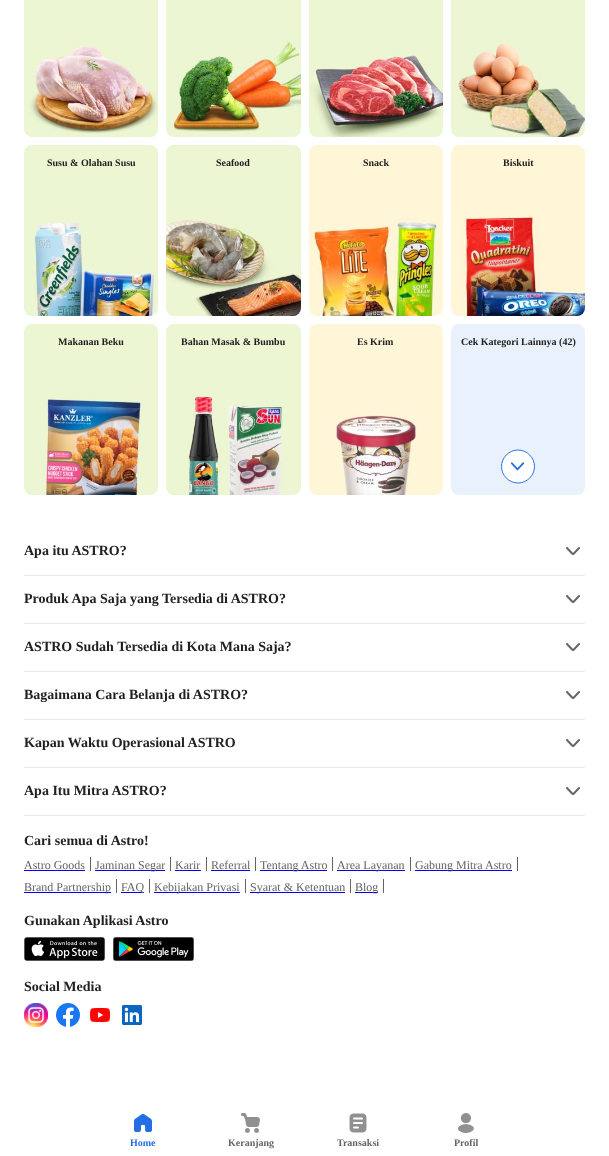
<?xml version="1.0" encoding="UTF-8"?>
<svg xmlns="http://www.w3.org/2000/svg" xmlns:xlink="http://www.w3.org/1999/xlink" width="609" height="1156">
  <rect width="100%" height="100%" fill="#ffffff" />
  <image x="24" y="0" width="134" height="137" xlink:href="image1.png" />
  <image x="166" y="0" width="135" height="137" xlink:href="image2.png" />
  <image x="309" y="0" width="134" height="137" xlink:href="image3.png" />
  <image x="451" y="0" width="134" height="137" xlink:href="image4.png" />
  <image x="24" y="145" width="134" height="171" xlink:href="image5.png" />
  <image x="166" y="145" width="135" height="171" xlink:href="image6.png" />
  <image x="309" y="145" width="134" height="171" xlink:href="image7.png" />
  <image x="451" y="145" width="134" height="171" xlink:href="image8.png" />
  <image x="24" y="324" width="134" height="171" xlink:href="image9.png" />
  <image x="166" y="324" width="135" height="171" xlink:href="image10.png" />
  <image x="309" y="324" width="134" height="171" xlink:href="image11.png" />
  <rect x="451" y="324" width="134" height="171" rx="8" fill="#e9f1fc" />
  <path d="M 501 466.5 c 0 -9.5 7.5 -17 17 -17 c 9.5 0 17 7.5 17 17 c 0 9.5 -7.5 17 -17 17 c -9.5 0 -17 -7.5 -17 -17 z" fill="#ffffff" />
  <path d="M 501.5 466.5 c 0 -9 7.5 -16.5 16.5 -16.5 c 9 0 16.5 7.5 16.5 16.5 c 0 9 -7.5 16.5 -16.5 16.5 c -9 0 -16.5 -7.5 -16.5 -16.5 z" fill="none" stroke="#246ee5" />
  <image x="510" y="462" width="15" height="9" xlink:href="image12.png" />
  <image x="134" y="1114" width="18" height="18" xlink:href="image13.png" />
  <image x="241" y="1113" width="19" height="20" xlink:href="image14.png" />
  <image x="349" y="1113" width="18" height="20" xlink:href="image15.png" />
  <image x="458" y="1113" width="16" height="20" xlink:href="image16.png" />
  <image x="566" y="547" width="14" height="8" xlink:href="image17.png" />
  <rect x="24" y="575" width="561" height="1" fill="#e9e9e9" />
  <image x="566" y="595" width="14" height="8" xlink:href="image17.png" />
  <rect x="24" y="623" width="561" height="1" fill="#e9e9e9" />
  <image x="566" y="643" width="14" height="8" xlink:href="image17.png" />
  <rect x="24" y="671" width="561" height="1" fill="#e9e9e9" />
  <image x="566" y="691" width="14" height="8" xlink:href="image17.png" />
  <rect x="24" y="719" width="561" height="1" fill="#e9e9e9" />
  <image x="566" y="739" width="14" height="8" xlink:href="image17.png" />
  <rect x="24" y="767" width="561" height="1" fill="#e9e9e9" />
  <image x="566" y="787" width="14" height="8" xlink:href="image17.png" />
  <rect x="24" y="815" width="561" height="1" fill="#e9e9e9" />
  <rect x="24" y="870" width="61" height="1" fill="#0000ee" />
  <rect x="90" y="857" width="1" height="14" fill="#646464" />
  <rect x="95" y="870" width="70" height="1" fill="#0000ee" />
  <rect x="170" y="857" width="1" height="14" fill="#646464" />
  <rect x="175" y="870" width="26" height="1" fill="#0000ee" />
  <rect x="206" y="857" width="1" height="14" fill="#646464" />
  <rect x="211" y="870" width="39" height="1" fill="#0000ee" />
  <rect x="255" y="857" width="1" height="14" fill="#646464" />
  <rect x="260" y="870" width="67" height="1" fill="#0000ee" />
  <rect x="332" y="857" width="1" height="14" fill="#646464" />
  <rect x="337" y="870" width="68" height="1" fill="#0000ee" />
  <rect x="410" y="857" width="1" height="14" fill="#646464" />
  <rect x="415" y="870" width="97" height="1" fill="#0000ee" />
  <rect x="517" y="857" width="1" height="14" fill="#646464" />
  <rect x="24" y="892" width="87" height="1" fill="#0000ee" />
  <rect x="116" y="879" width="1" height="14" fill="#646464" />
  <rect x="121" y="892" width="23" height="1" fill="#0000ee" />
  <rect x="149" y="879" width="1" height="14" fill="#646464" />
  <rect x="154" y="892" width="86" height="1" fill="#0000ee" />
  <rect x="245" y="879" width="1" height="14" fill="#646464" />
  <rect x="250" y="892" width="95" height="1" fill="#0000ee" />
  <rect x="350" y="879" width="1" height="14" fill="#646464" />
  <rect x="355" y="892" width="23" height="1" fill="#0000ee" />
  <rect x="383" y="879" width="1" height="14" fill="#646464" />
  <image x="24" y="937" width="81" height="24" xlink:href="image18.png" />
  <image x="113" y="937" width="81" height="24" xlink:href="image19.png" />
  <image x="24" y="1003" width="24" height="24" xlink:href="image20.png" />
  <image x="56" y="1003" width="24" height="24" xlink:href="image21.png" />
  <image x="90" y="1007" width="20" height="16" xlink:href="image22.png" />
  <image x="122" y="1005" width="20" height="20" xlink:href="image23.png" />
  <text x="47" y="166" style="font-family: Liberation Serif; font-size: 10px; font-weight: bold; fill: #212121">Susu &amp; Olahan Susu</text>
  <text x="216" y="166" style="font-family: Liberation Serif; font-size: 10px; font-weight: bold; fill: #212121">Seafood</text>
  <text x="363" y="166" style="font-family: Liberation Serif; font-size: 10px; font-weight: bold; fill: #212121">Snack</text>
  <text x="503" y="166" style="font-family: Liberation Serif; font-size: 10px; font-weight: bold; fill: #212121">Biskuit</text>
  <text x="58" y="345" style="font-family: Liberation Serif; font-size: 10px; font-weight: bold; fill: #212121">Makanan Beku</text>
  <text x="181" y="345" style="font-family: Liberation Serif; font-size: 10px; font-weight: bold; fill: #212121">Bahan Masak &amp; Bumbu</text>
  <text x="357" y="345" style="font-family: Liberation Serif; font-size: 10px; font-weight: bold; fill: #212121">Es Krim</text>
  <text x="461" y="345" style="font-family: Liberation Serif; font-size: 10px; font-weight: bold; fill: #212121">Cek Kategori Lainnya (42)</text>
  <text x="130" y="1146" style="font-family: Liberation Serif; font-size: 10px; font-weight: bold; fill: #246ee5">Home</text>
  <text x="228" y="1146" style="font-family: Liberation Serif; font-size: 10px; font-weight: bold; fill: #646464">Keranjang</text>
  <text x="337" y="1146" style="font-family: Liberation Serif; font-size: 10px; font-weight: bold; fill: #646464">Transaksi</text>
  <text x="454" y="1146" style="font-family: Liberation Serif; font-size: 10px; font-weight: bold; fill: #646464">Profil</text>
  <text x="24" y="555" style="font-family: Liberation Serif; font-size: 14px; font-weight: bold; fill: #212121">Apa itu ASTRO?</text>
  <text x="24" y="603" style="font-family: Liberation Serif; font-size: 14px; font-weight: bold; fill: #212121">Produk Apa Saja yang Tersedia di ASTRO?</text>
  <text x="24" y="651" style="font-family: Liberation Serif; font-size: 14px; font-weight: bold; fill: #212121">ASTRO Sudah Tersedia di Kota Mana Saja?</text>
  <text x="24" y="699" style="font-family: Liberation Serif; font-size: 14px; font-weight: bold; fill: #212121">Bagaimana Cara Belanja di ASTRO?</text>
  <text x="24" y="747" style="font-family: Liberation Serif; font-size: 14px; font-weight: bold; fill: #212121">Kapan Waktu Operasional ASTRO</text>
  <text x="24" y="795" style="font-family: Liberation Serif; font-size: 14px; font-weight: bold; fill: #212121">Apa Itu Mitra ASTRO?</text>
  <text x="24" y="845" style="font-family: Liberation Serif; font-size: 14px; font-weight: bold; fill: #212121">Cari semua di Astro!</text>
  <text x="24" y="869" style="font-family: Liberation Serif; font-size: 12px; fill: #646464">Astro Goods</text>
  <text x="95" y="869" style="font-family: Liberation Serif; font-size: 12px; fill: #646464">Jaminan Segar</text>
  <text x="175" y="869" style="font-family: Liberation Serif; font-size: 12px; fill: #646464">Karir</text>
  <text x="211" y="869" style="font-family: Liberation Serif; font-size: 12px; fill: #646464">Referral</text>
  <text x="260" y="869" style="font-family: Liberation Serif; font-size: 12px; fill: #646464">Tentang Astro</text>
  <text x="337" y="869" style="font-family: Liberation Serif; font-size: 12px; fill: #646464">Area Layanan</text>
  <text x="415" y="869" style="font-family: Liberation Serif; font-size: 12px; fill: #646464">Gabung Mitra Astro</text>
  <text x="24" y="891" style="font-family: Liberation Serif; font-size: 12px; fill: #646464">Brand Partnership</text>
  <text x="121" y="891" style="font-family: Liberation Serif; font-size: 12px; fill: #646464">FAQ</text>
  <text x="154" y="891" style="font-family: Liberation Serif; font-size: 12px; fill: #646464">Kebijakan Privasi</text>
  <text x="250" y="891" style="font-family: Liberation Serif; font-size: 12px; fill: #646464">Syarat &amp; Ketentuan</text>
  <text x="355" y="891" style="font-family: Liberation Serif; font-size: 12px; fill: #646464">Blog</text>
  <text x="24" y="925" style="font-family: Liberation Serif; font-size: 14px; font-weight: bold; fill: #212121">Gunakan Aplikasi Astro</text>
  <text x="24" y="991" style="font-family: Liberation Serif; font-size: 14px; font-weight: bold; fill: #212121">Social Media</text>
</svg>
